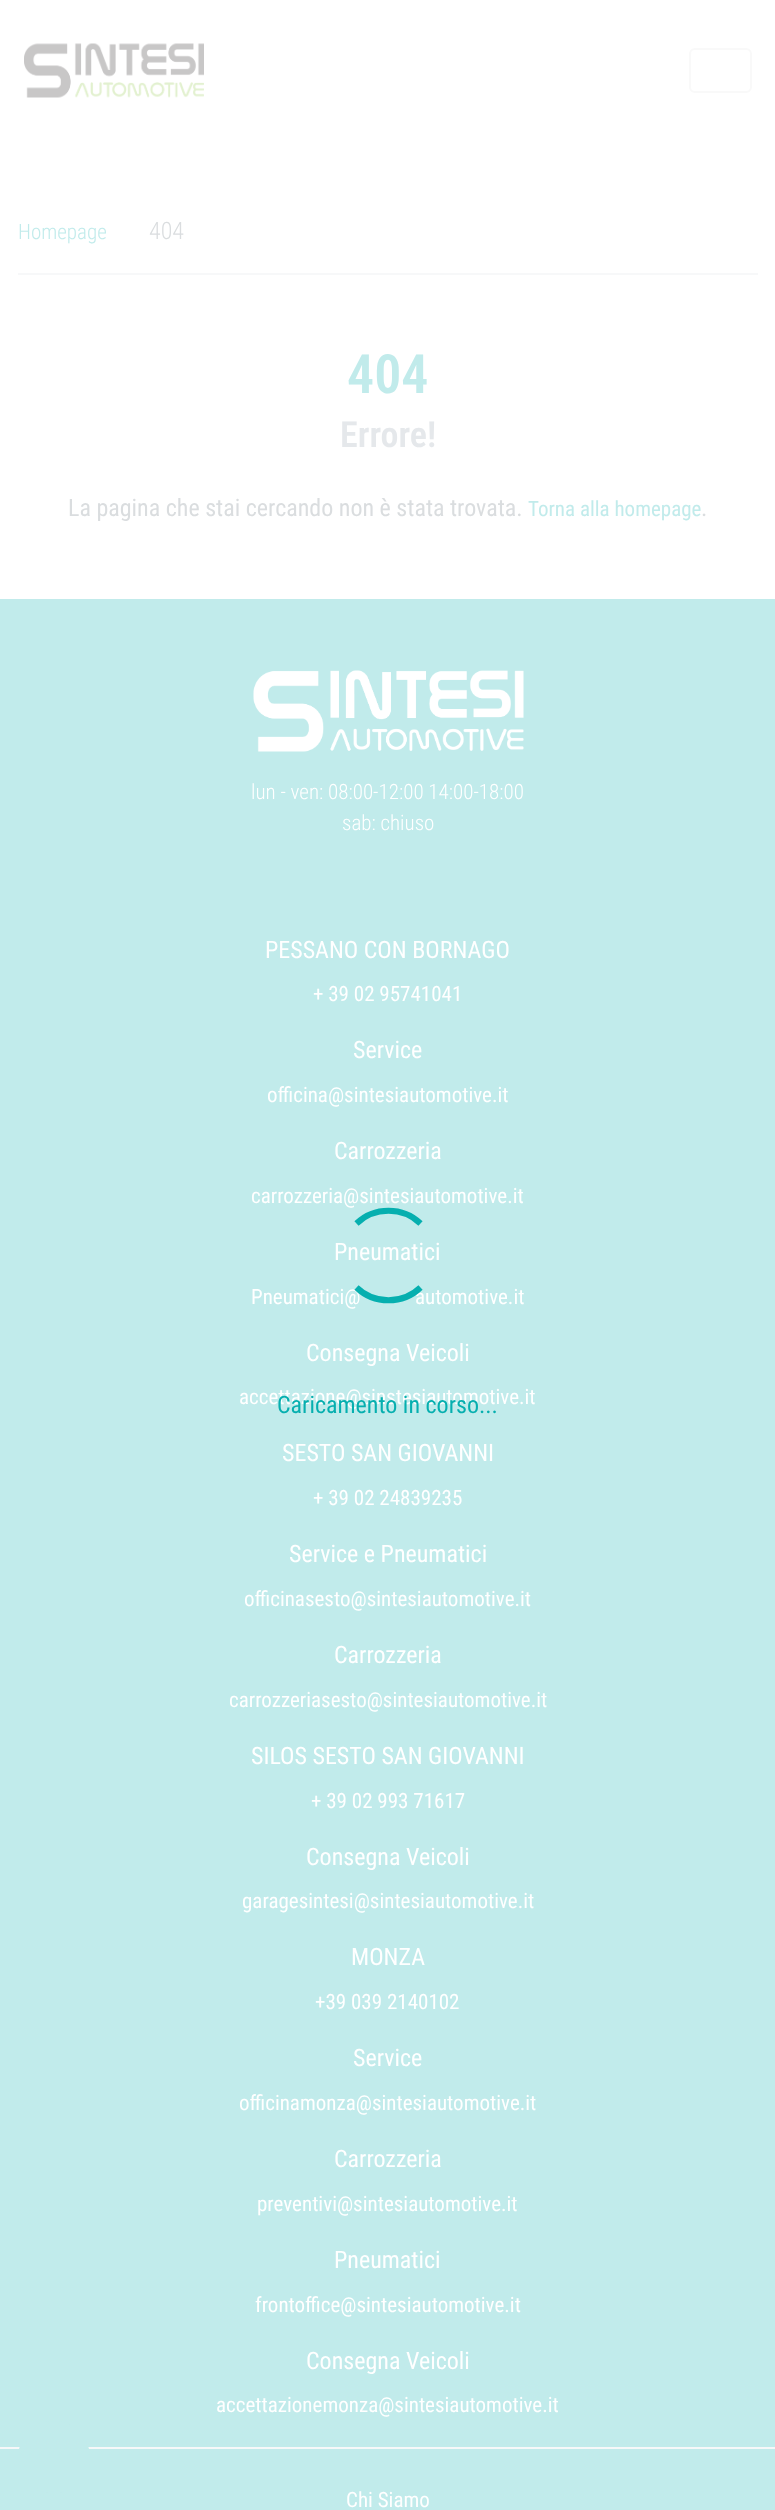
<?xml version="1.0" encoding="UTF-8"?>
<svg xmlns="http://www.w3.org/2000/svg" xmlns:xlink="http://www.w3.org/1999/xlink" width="775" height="2510">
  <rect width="100%" height="100%" fill="#ffffff" />
  <image x="24" y="43" width="180" height="55" xlink:href="image1.png" />
  <rect x="690" y="49" width="61" height="43" rx="5" fill="none" stroke="#f9f9f9" stroke-width="2" />
  <rect x="18" y="273" width="740" height="2" fill="#f7f8f9" />
  <rect y="599" width="775" height="1911" fill="#c1ebeb" />
  <image x="253" y="670" width="271" height="82" xlink:href="image2.png" />
  <rect y="2447" width="775" height="2" fill="#f7f8f9" />
  <circle cx="54" cy="2457" r="36" fill="#c1ebeb" />
  <text x="18" y="239" style="font-family: Roboto Condensed; font-size: 21px; font-weight: 300; fill: #c1ebeb">Homepage</text>
  <text x="149" y="239" style="font-family: Roboto Condensed; font-size: 24px; font-weight: 300; fill: #dadddf">404</text>
  <text x="347" y="393" style="font-family: Roboto Condensed; font-size: 54px; font-weight: 600; fill: #c1ebeb">404</text>
  <text x="340" y="447" style="font-family: Roboto Condensed; font-size: 36px; font-weight: 600; fill: #e5e8eb">Errore!</text>
  <text x="68" y="516" style="font-family: Roboto Condensed; font-size: 24px; fill: #dadddf">La pagina che stai cercando non è stata trovata.</text>
  <text x="528" y="516" style="font-family: Roboto Condensed; font-size: 21px; fill: #c1ebeb">Torna alla homepage</text>
  <text x="701" y="516" style="font-family: Roboto Condensed; font-size: 24px; fill: #dadddf">.</text>
  <text x="251" y="799" style="font-family: Roboto Condensed; font-size: 21px; font-weight: 300; fill: #ffffff">lun - ven: 08:00-12:00 14:00-18:00</text>
  <text x="342" y="830" style="font-family: Roboto Condensed; font-size: 21px; font-weight: 300; fill: #ffffff">sab: chiuso</text>
  <text x="265" y="958" style="font-family: Roboto Condensed; font-size: 24px; fill: #ffffff">PESSANO CON BORNAGO</text>
  <text x="313" y="1001" style="font-family: Roboto Condensed; font-size: 21px; fill: #ffffff">+ 39 02 95741041</text>
  <text x="353" y="1058" style="font-family: Roboto Condensed; font-size: 24px; fill: #ffffff">Service</text>
  <text x="267" y="1102" style="font-family: Roboto Condensed; font-size: 21px; fill: #ffffff">officina@sintesiautomotive.it</text>
  <text x="334" y="1159" style="font-family: Roboto Condensed; font-size: 24px; fill: #ffffff">Carrozzeria</text>
  <text x="251" y="1203" style="font-family: Roboto Condensed; font-size: 21px; fill: #ffffff">carrozzeria@sintesiautomotive.it</text>
  <text x="334" y="1260" style="font-family: Roboto Condensed; font-size: 24px; fill: #ffffff">Pneumatici</text>
  <text x="251" y="1304" style="font-family: Roboto Condensed; font-size: 21px; fill: #ffffff">Pneumatici@</text>
  <text x="415" y="1304" style="font-family: Roboto Condensed; font-size: 21px; fill: #ffffff">automotive.it</text>
  <text x="306" y="1361" style="font-family: Roboto Condensed; font-size: 24px; fill: #ffffff">Consegna Veicoli</text>
  <text x="239" y="1404" style="font-family: Roboto Condensed; font-size: 21px; fill: #ffffff">accettazione@sinstesiautomotive.it</text>
  <text x="282" y="1461" style="font-family: Roboto Condensed; font-size: 24px; fill: #ffffff">SESTO SAN GIOVANNI</text>
  <text x="313" y="1505" style="font-family: Roboto Condensed; font-size: 21px; fill: #ffffff">+ 39 02 24839235</text>
  <text x="289" y="1562" style="font-family: Roboto Condensed; font-size: 24px; fill: #ffffff">Service e Pneumatici</text>
  <text x="244" y="1606" style="font-family: Roboto Condensed; font-size: 21px; fill: #ffffff">officinasesto@sintesiautomotive.it</text>
  <text x="334" y="1663" style="font-family: Roboto Condensed; font-size: 24px; fill: #ffffff">Carrozzeria</text>
  <text x="229" y="1707" style="font-family: Roboto Condensed; font-size: 21px; fill: #ffffff">carrozzeriasesto@sintesiautomotive.it</text>
  <text x="251" y="1764" style="font-family: Roboto Condensed; font-size: 24px; fill: #ffffff">SILOS SESTO SAN GIOVANNI</text>
  <text x="311" y="1808" style="font-family: Roboto Condensed; font-size: 21px; fill: #ffffff">+ 39 02 993 71617</text>
  <text x="306" y="1865" style="font-family: Roboto Condensed; font-size: 24px; fill: #ffffff">Consegna Veicoli</text>
  <text x="242" y="1908" style="font-family: Roboto Condensed; font-size: 21px; fill: #ffffff">garagesintesi@sintesiautomotive.it</text>
  <text x="351" y="1965" style="font-family: Roboto Condensed; font-size: 24px; fill: #ffffff">MONZA</text>
  <text x="315" y="2009" style="font-family: Roboto Condensed; font-size: 21px; fill: #ffffff">+39 039 2140102</text>
  <text x="353" y="2066" style="font-family: Roboto Condensed; font-size: 24px; fill: #ffffff">Service</text>
  <text x="239" y="2110" style="font-family: Roboto Condensed; font-size: 21px; fill: #ffffff">officinamonza@sintesiautomotive.it</text>
  <text x="334" y="2167" style="font-family: Roboto Condensed; font-size: 24px; fill: #ffffff">Carrozzeria</text>
  <text x="257" y="2211" style="font-family: Roboto Condensed; font-size: 21px; fill: #ffffff">preventivi@sintesiautomotive.it</text>
  <text x="334" y="2268" style="font-family: Roboto Condensed; font-size: 24px; fill: #ffffff">Pneumatici</text>
  <text x="255" y="2312" style="font-family: Roboto Condensed; font-size: 21px; fill: #ffffff">frontoffice@sintesiautomotive.it</text>
  <text x="306" y="2369" style="font-family: Roboto Condensed; font-size: 24px; fill: #ffffff">Consegna Veicoli</text>
  <text x="216" y="2412" style="font-family: Roboto Condensed; font-size: 21px; fill: #ffffff">accettazionemonza@sintesiautomotive.it</text>
  <text x="346" y="2507" style="font-family: Roboto Condensed; font-size: 21px; fill: #ffffff">Chi Siamo</text>
  <path d="M 356.5 1223.5 c 17.5 -17 46.5 -17 64 0" fill="none" stroke="#06afaf" stroke-width="6" />
  <path d="M 420.5 1287.5 c -17.5 17 -46.5 17 -64 0" fill="none" stroke="#06afaf" stroke-width="6" />
  <text x="277" y="1413" style="font-family: Roboto Condensed; font-size: 24px; fill: #06afaf">Caricamento in corso...</text>
</svg>
